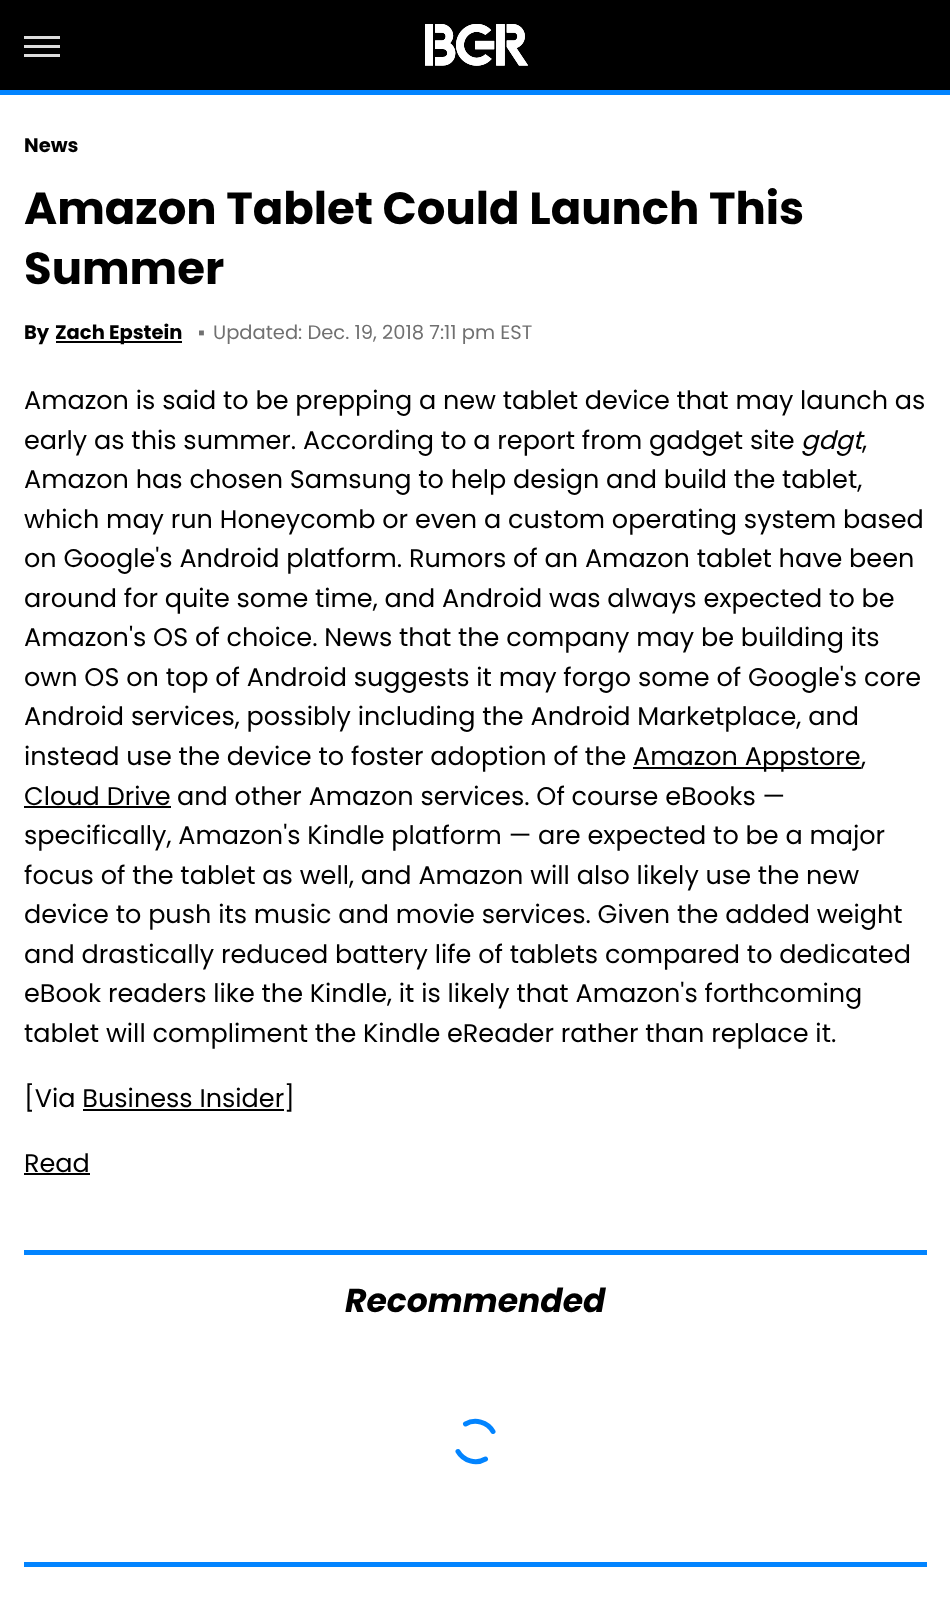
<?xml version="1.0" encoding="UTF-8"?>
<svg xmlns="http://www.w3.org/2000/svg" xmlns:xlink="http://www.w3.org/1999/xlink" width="950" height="1622">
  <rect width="100%" height="100%" fill="#ffffff" />
  <rect width="950" height="90" fill="#000000" />
  <rect y="90" width="950" height="5" fill="#0284ff" />
  <rect x="24" y="36" width="36" height="3" fill="#dddddd" />
  <rect x="24" y="45" width="36" height="3" fill="#dddddd" />
  <rect x="24" y="54" width="36" height="3" fill="#dddddd" />
  <image x="425" y="24" width="103" height="42" xlink:href="image1.png" />
  <rect x="56" y="341" width="126" height="2" fill="#000000" />
  <rect x="633" y="767" width="228" height="2" fill="#000000" />
  <rect x="24" y="806" width="147" height="2" fill="#000000" />
  <rect x="83" y="1109" width="201" height="2" fill="#000000" />
  <rect x="24" y="1173" width="66" height="2" fill="#000000" />
  <rect x="24" y="1250" width="903" height="5" fill="#0284ff" />
  <rect x="24" y="1562" width="903" height="5" fill="#0284ff" />
  <path d="M 465.5 1424 c 9.5 -5.5 22 -2 27.5 7.5 m -7.5 27.5 c -9.5 5.5 -22 2 -27.5 -7.5" fill="none" stroke="#0284ff" stroke-width="5" stroke-linecap="round" />
  <text x="24" y="152" style="font-family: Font; font-size: 19.5px; font-weight: bold; fill: #000000">News</text>
  <text x="24" y="224" style="font-family: Font; font-size: 45px; font-weight: bold; fill: #000000">Amazon Tablet Could Launch This</text>
  <text x="24" y="284" style="font-family: Font; font-size: 45px; font-weight: bold; fill: #000000">Summer</text>
  <text x="24" y="339" style="font-family: Font; font-size: 19.5px; font-weight: bold; fill: #000000">By</text>
  <text x="55" y="339" style="font-family: Font; font-size: 19.5px; font-weight: bold; fill: #000000">Zach Epstein</text>
  <text x="198" y="339" style="font-family: Liberation Sans; font-size: 19.5px; fill: #707070">▪</text>
  <text x="213" y="339" style="font-family: poppins; font-size: 19.5px; fill: #707070">Updated: Dec. 19, 2018 7:11 pm EST</text>
  <text x="24" y="409" style="font-family: poppins; font-size: 25.5px; fill: #000000">Amazon is said to be prepping a new tablet device that may launch as</text>
  <text x="24" y="449" style="font-family: poppins; font-size: 25.5px; fill: #000000">early as this summer. According to a report from gadget site</text>
  <text x="801" y="449" style="font-family: poppins; font-size: 25.5px; font-style: italic; fill: #000000">gdgt</text>
  <text x="862" y="449" style="font-family: poppins; font-size: 25.5px; fill: #000000">,</text>
  <text x="24" y="488" style="font-family: poppins; font-size: 25.5px; fill: #000000">Amazon has chosen Samsung to help design and build the tablet,</text>
  <text x="24" y="528" style="font-family: poppins; font-size: 25.5px; fill: #000000">which may run Honeycomb or even a custom operating system based</text>
  <text x="24" y="567" style="font-family: poppins; font-size: 25.5px; fill: #000000">on Google's Android platform. Rumors of an Amazon tablet have been</text>
  <text x="24" y="607" style="font-family: poppins; font-size: 25.5px; fill: #000000">around for quite some time, and Android was always expected to be</text>
  <text x="24" y="646" style="font-family: poppins; font-size: 25.5px; fill: #000000">Amazon's OS of choice. News that the company may be building its</text>
  <text x="24" y="686" style="font-family: poppins; font-size: 25.5px; fill: #000000">own OS on top of Android suggests it may forgo some of Google's core</text>
  <text x="24" y="725" style="font-family: poppins; font-size: 25.5px; fill: #000000">Android services, possibly including the Android Marketplace, and</text>
  <text x="24" y="765" style="font-family: poppins; font-size: 25.5px; fill: #000000">instead use the device to foster adoption of the</text>
  <text x="633" y="765" style="font-family: poppins; font-size: 25.5px; fill: #000000">Amazon Appstore</text>
  <text x="861" y="765" style="font-family: poppins; font-size: 25.5px; fill: #000000">,</text>
  <text x="24" y="805" style="font-family: poppins; font-size: 25.5px; fill: #000000">Cloud Drive</text>
  <text x="177" y="805" style="font-family: poppins; font-size: 25.5px; fill: #000000">and other Amazon services. Of course eBooks —</text>
  <text x="24" y="844" style="font-family: poppins; font-size: 25.5px; fill: #000000">specifically, Amazon's Kindle platform — are expected to be a major</text>
  <text x="24" y="884" style="font-family: poppins; font-size: 25.5px; fill: #000000">focus of the tablet as well, and Amazon will also likely use the new</text>
  <text x="24" y="923" style="font-family: poppins; font-size: 25.5px; fill: #000000">device to push its music and movie services. Given the added weight</text>
  <text x="24" y="963" style="font-family: poppins; font-size: 25.5px; fill: #000000">and drastically reduced battery life of tablets compared to dedicated</text>
  <text x="24" y="1002" style="font-family: poppins; font-size: 25.5px; fill: #000000">eBook readers like the Kindle, it is likely that Amazon's forthcoming</text>
  <text x="24" y="1042" style="font-family: poppins; font-size: 25.5px; fill: #000000">tablet will compliment the Kindle eReader rather than replace it.</text>
  <text x="24" y="1107" style="font-family: poppins; font-size: 25.5px; fill: #000000">[Via Business Insider</text>
  <text x="284" y="1107" style="font-family: poppins; font-size: 25.5px; fill: #000000">]</text>
  <text x="24" y="1172" style="font-family: poppins; font-size: 25.5px; fill: #000000">Read</text>
  <text x="345" y="1312" style="font-family: poppins; font-size: 33px; font-weight: bold; font-style: italic; fill: #000000">Recommended</text>
</svg>
